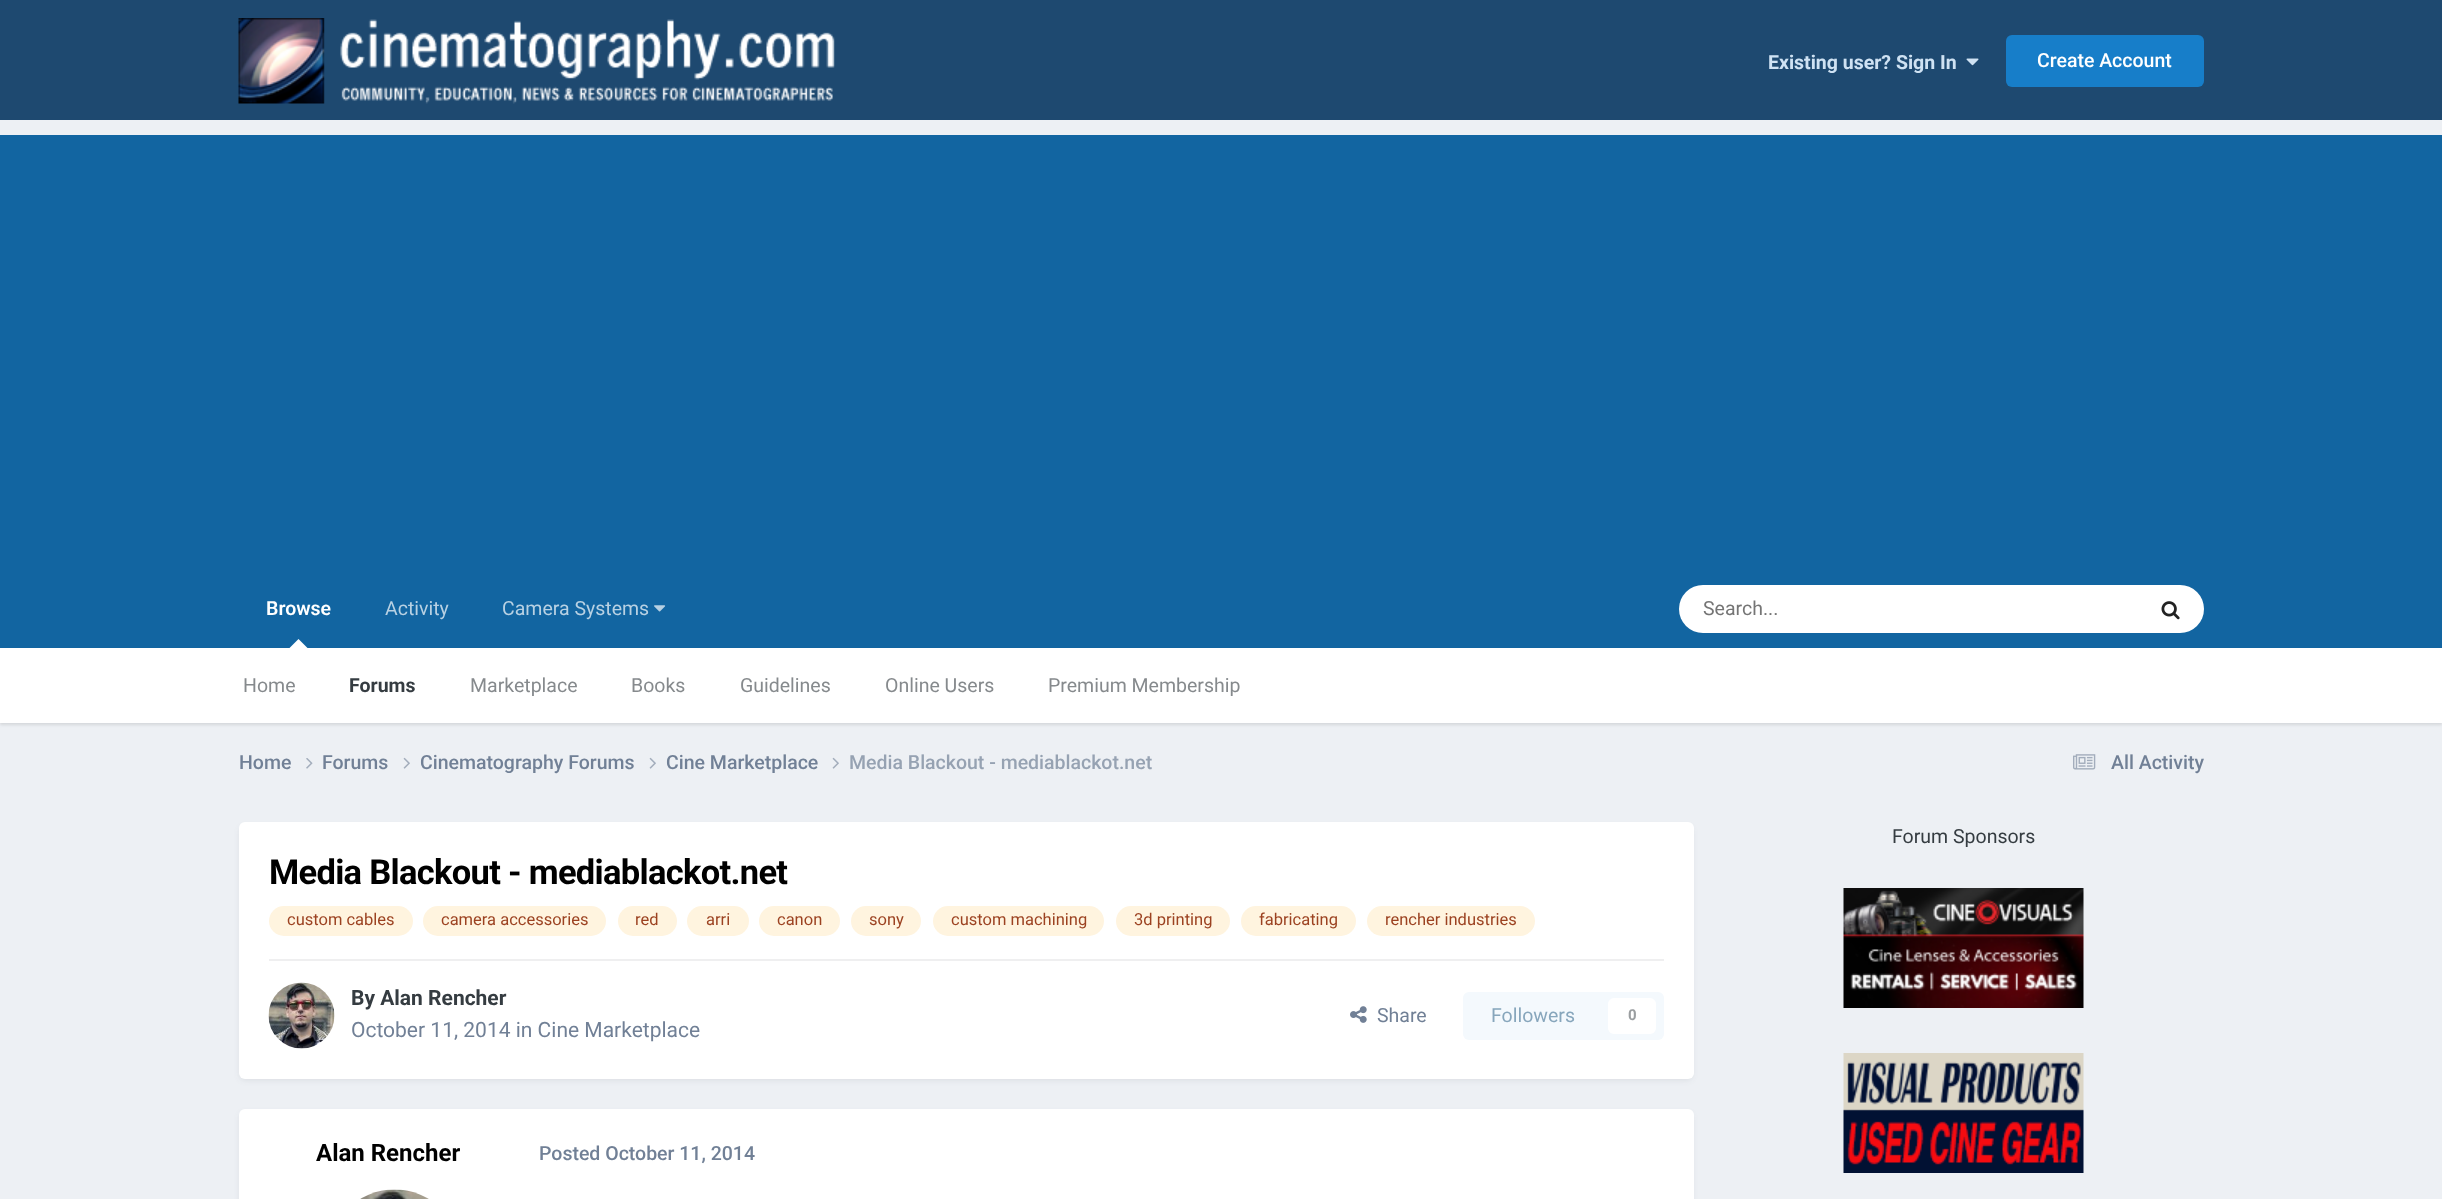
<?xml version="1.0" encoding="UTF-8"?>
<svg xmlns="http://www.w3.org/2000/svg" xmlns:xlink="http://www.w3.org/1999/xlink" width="2442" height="1199">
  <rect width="100%" height="100%" fill="#edf0f4" />
  <rect width="2442" height="120" fill="#1e4970" />
  <image x="238" y="18" width="597" height="86" xlink:href="image1.png" />
  <image x="1966" y="58" width="13" height="8" xlink:href="image2.png" />
  <rect x="2006" y="35" width="198" height="52" rx="6" fill="#177ec9" />
  <rect y="135" width="2442" height="513" fill="#1265a1" />
  <image x="654" y="605" width="12" height="7" xlink:href="image3.png" />
  <rect y="650" width="2442" height="75" fill="#000000" fill-opacity="0.1" filter="blur(1.5px)" />
  <path d="M 307.5 648 h -18 l 9 -9 z" fill="#ffffff" />
  <rect x="1679" y="585" width="525" height="48" rx="24" fill="#ffffff" />
  <image x="2161" y="601" width="19" height="19" xlink:href="image4.png" />
  <rect y="648" width="2442" height="75" fill="#ffffff" />
  <image x="306" y="758" width="7" height="11" xlink:href="image5.png" />
  <image x="403" y="757" width="7" height="12" xlink:href="image6.png" />
  <image x="649" y="757" width="7" height="12" xlink:href="image6.png" />
  <image x="832" y="757" width="7" height="12" xlink:href="image6.png" />
  <image x="2073" y="754" width="23" height="16" xlink:href="image7.png" />
  <image x="1843" y="888" width="241" height="120" xlink:href="image8.png" />
  <image x="1843" y="1053" width="241" height="120" xlink:href="image9.png" />
  <rect x="240" y="827" width="1452" height="253" rx="5" fill="#2d3748" fill-opacity="0.1" filter="blur(3px)" />
  <rect x="239" y="822" width="1455" height="257" rx="6" fill="#ffffff" />
  <rect x="269" y="906" width="144" height="30" rx="15" fill="#fff4df" />
  <rect x="423" y="906" width="183" height="30" rx="15" fill="#fff4df" />
  <rect x="618" y="906" width="59" height="30" rx="15" fill="#fff4df" />
  <rect x="687" y="906" width="62" height="30" rx="15" fill="#fff4df" />
  <rect x="759" y="906" width="81" height="30" rx="15" fill="#fff4df" />
  <rect x="851" y="906" width="70" height="30" rx="15" fill="#fff4df" />
  <rect x="933" y="906" width="171" height="30" rx="15" fill="#fff4df" />
  <rect x="1116" y="906" width="114" height="30" rx="15" fill="#fff4df" />
  <rect x="1241" y="906" width="115" height="30" rx="15" fill="#fff4df" />
  <rect x="1367" y="906" width="168" height="30" rx="15" fill="#fff4df" />
  <rect x="269" y="959" width="1395" height="2" fill="#efeff0" />
  <image x="268" y="982" width="67" height="67" xlink:href="image10.png" />
  <image x="1350" y="1006" width="17" height="17" xlink:href="image11.png" />
  <rect x="1463" y="992" width="201" height="48" rx="6" fill="#f4f9fd" />
  <rect x="1608" y="998" width="48" height="36" rx="6" fill="#ffffff" />
  <rect x="240" y="1113" width="1452" height="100" rx="5" fill="#2d3748" fill-opacity="0.1" filter="blur(3px)" />
  <rect x="239" y="1109" width="1455" height="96" rx="6" fill="#ffffff" />
  <image x="360" y="1189" width="69" height="10" xlink:href="image12.png" />
  <text x="1768" y="69" style="font-family: Roboto; font-size: 19.5px; font-weight: bold; fill: #cfe2f3">Existing user? Sign In</text>
  <text x="2037" y="67" style="font-family: Roboto; font-size: 19.5px; font-weight: 500; fill: #ffffff">Create Account</text>
  <text x="385" y="615" style="font-family: Roboto; font-size: 19.5px; fill: #b8d1e3">Activity</text>
  <text x="502" y="615" style="font-family: Roboto; font-size: 19.5px; fill: #b8d1e3">Camera Systems</text>
  <text x="266" y="615" style="font-family: Roboto; font-size: 19.5px; font-weight: 600; fill: #ffffff">Browse</text>
  <text x="243" y="692" style="font-family: Roboto; font-size: 19.5px; fill: #868a8d">Home</text>
  <text x="349" y="692" style="font-family: Roboto; font-size: 19.5px; font-weight: bold; fill: #353c41">Forums</text>
  <text x="470" y="692" style="font-family: Roboto; font-size: 19.5px; fill: #868a8d">Marketplace</text>
  <text x="631" y="692" style="font-family: Roboto; font-size: 19.5px; fill: #868a8d">Books</text>
  <text x="740" y="692" style="font-family: Roboto; font-size: 19.5px; fill: #868a8d">Guidelines</text>
  <text x="885" y="692" style="font-family: Roboto; font-size: 19.5px; fill: #868a8d">Online Users</text>
  <text x="1048" y="692" style="font-family: Roboto; font-size: 19.5px; fill: #868a8d">Premium Membership</text>
  <text x="1703" y="615" style="font-family: Roboto; font-size: 19.5px; fill: #757575">Search...</text>
  <text x="239" y="769" style="font-family: Roboto; font-size: 19.5px; font-weight: 500; fill: #718096">Home</text>
  <text x="322" y="769" style="font-family: Roboto; font-size: 19.5px; font-weight: 500; fill: #718096">Forums</text>
  <text x="420" y="769" style="font-family: Roboto; font-size: 19.5px; font-weight: 500; fill: #718096">Cinematography Forums</text>
  <text x="666" y="769" style="font-family: Roboto; font-size: 19.5px; font-weight: 500; fill: #718096">Cine Marketplace</text>
  <text x="849" y="769" style="font-family: Roboto; font-size: 19.5px; font-weight: 500; fill: #96a2b2">Media Blackout - mediablackot.net</text>
  <text x="2111" y="769" style="font-family: Roboto; font-size: 19.5px; font-weight: 500; fill: #718096">All Activity</text>
  <text x="1892" y="843" style="font-family: Roboto; font-size: 19.5px; fill: #353c41">Forum Sponsors</text>
  <text x="269" y="884" style="font-family: Roboto; font-size: 34.5px; font-weight: bold; letter-spacing: -0.7px; fill: #000000">Media Blackout - mediablackot.net</text>
  <text x="287" y="925" style="font-family: Roboto; font-size: 16.5px; fill: #9c4221">custom cables</text>
  <text x="441" y="925" style="font-family: Roboto; font-size: 16.5px; fill: #9c4221">camera accessories</text>
  <text x="635" y="925" style="font-family: Roboto; font-size: 16.5px; fill: #9c4221">red</text>
  <text x="706" y="925" style="font-family: Roboto; font-size: 16.5px; fill: #9c4221">arri</text>
  <text x="777" y="925" style="font-family: Roboto; font-size: 16.5px; fill: #9c4221">canon</text>
  <text x="869" y="925" style="font-family: Roboto; font-size: 16.5px; fill: #9c4221">sony</text>
  <text x="951" y="925" style="font-family: Roboto; font-size: 16.5px; fill: #9c4221">custom machining</text>
  <text x="1134" y="925" style="font-family: Roboto; font-size: 16.5px; fill: #9c4221">3d printing</text>
  <text x="1259" y="925" style="font-family: Roboto; font-size: 16.5px; fill: #9c4221">fabricating</text>
  <text x="1385" y="925" style="font-family: Roboto; font-size: 16.5px; fill: #9c4221">rencher industries</text>
  <text x="351" y="1005" style="font-family: Roboto; font-size: 21px; font-weight: bold; fill: #353c41">By Alan Rencher</text>
  <text x="351" y="1037" style="font-family: Roboto; font-size: 21px; fill: #718096">October 11, 2014 in Cine Marketplace</text>
  <text x="1377" y="1022" style="font-family: Roboto; font-size: 19.5px; fill: #718096">Share</text>
  <text x="1491" y="1022" style="font-family: Roboto; font-size: 19.5px; fill: #87a6bc">Followers</text>
  <text x="1628" y="1020" style="font-family: Roboto; font-size: 15px; font-weight: bold; fill: #9a9ea0">0</text>
  <text x="316" y="1161" style="font-family: Roboto; font-size: 24px; font-weight: bold; fill: #000000">Alan Rencher</text>
  <text x="539" y="1160" style="font-family: Roboto; font-size: 19.5px; font-weight: 500; fill: #718096">Posted October 11, 2014</text>
</svg>
